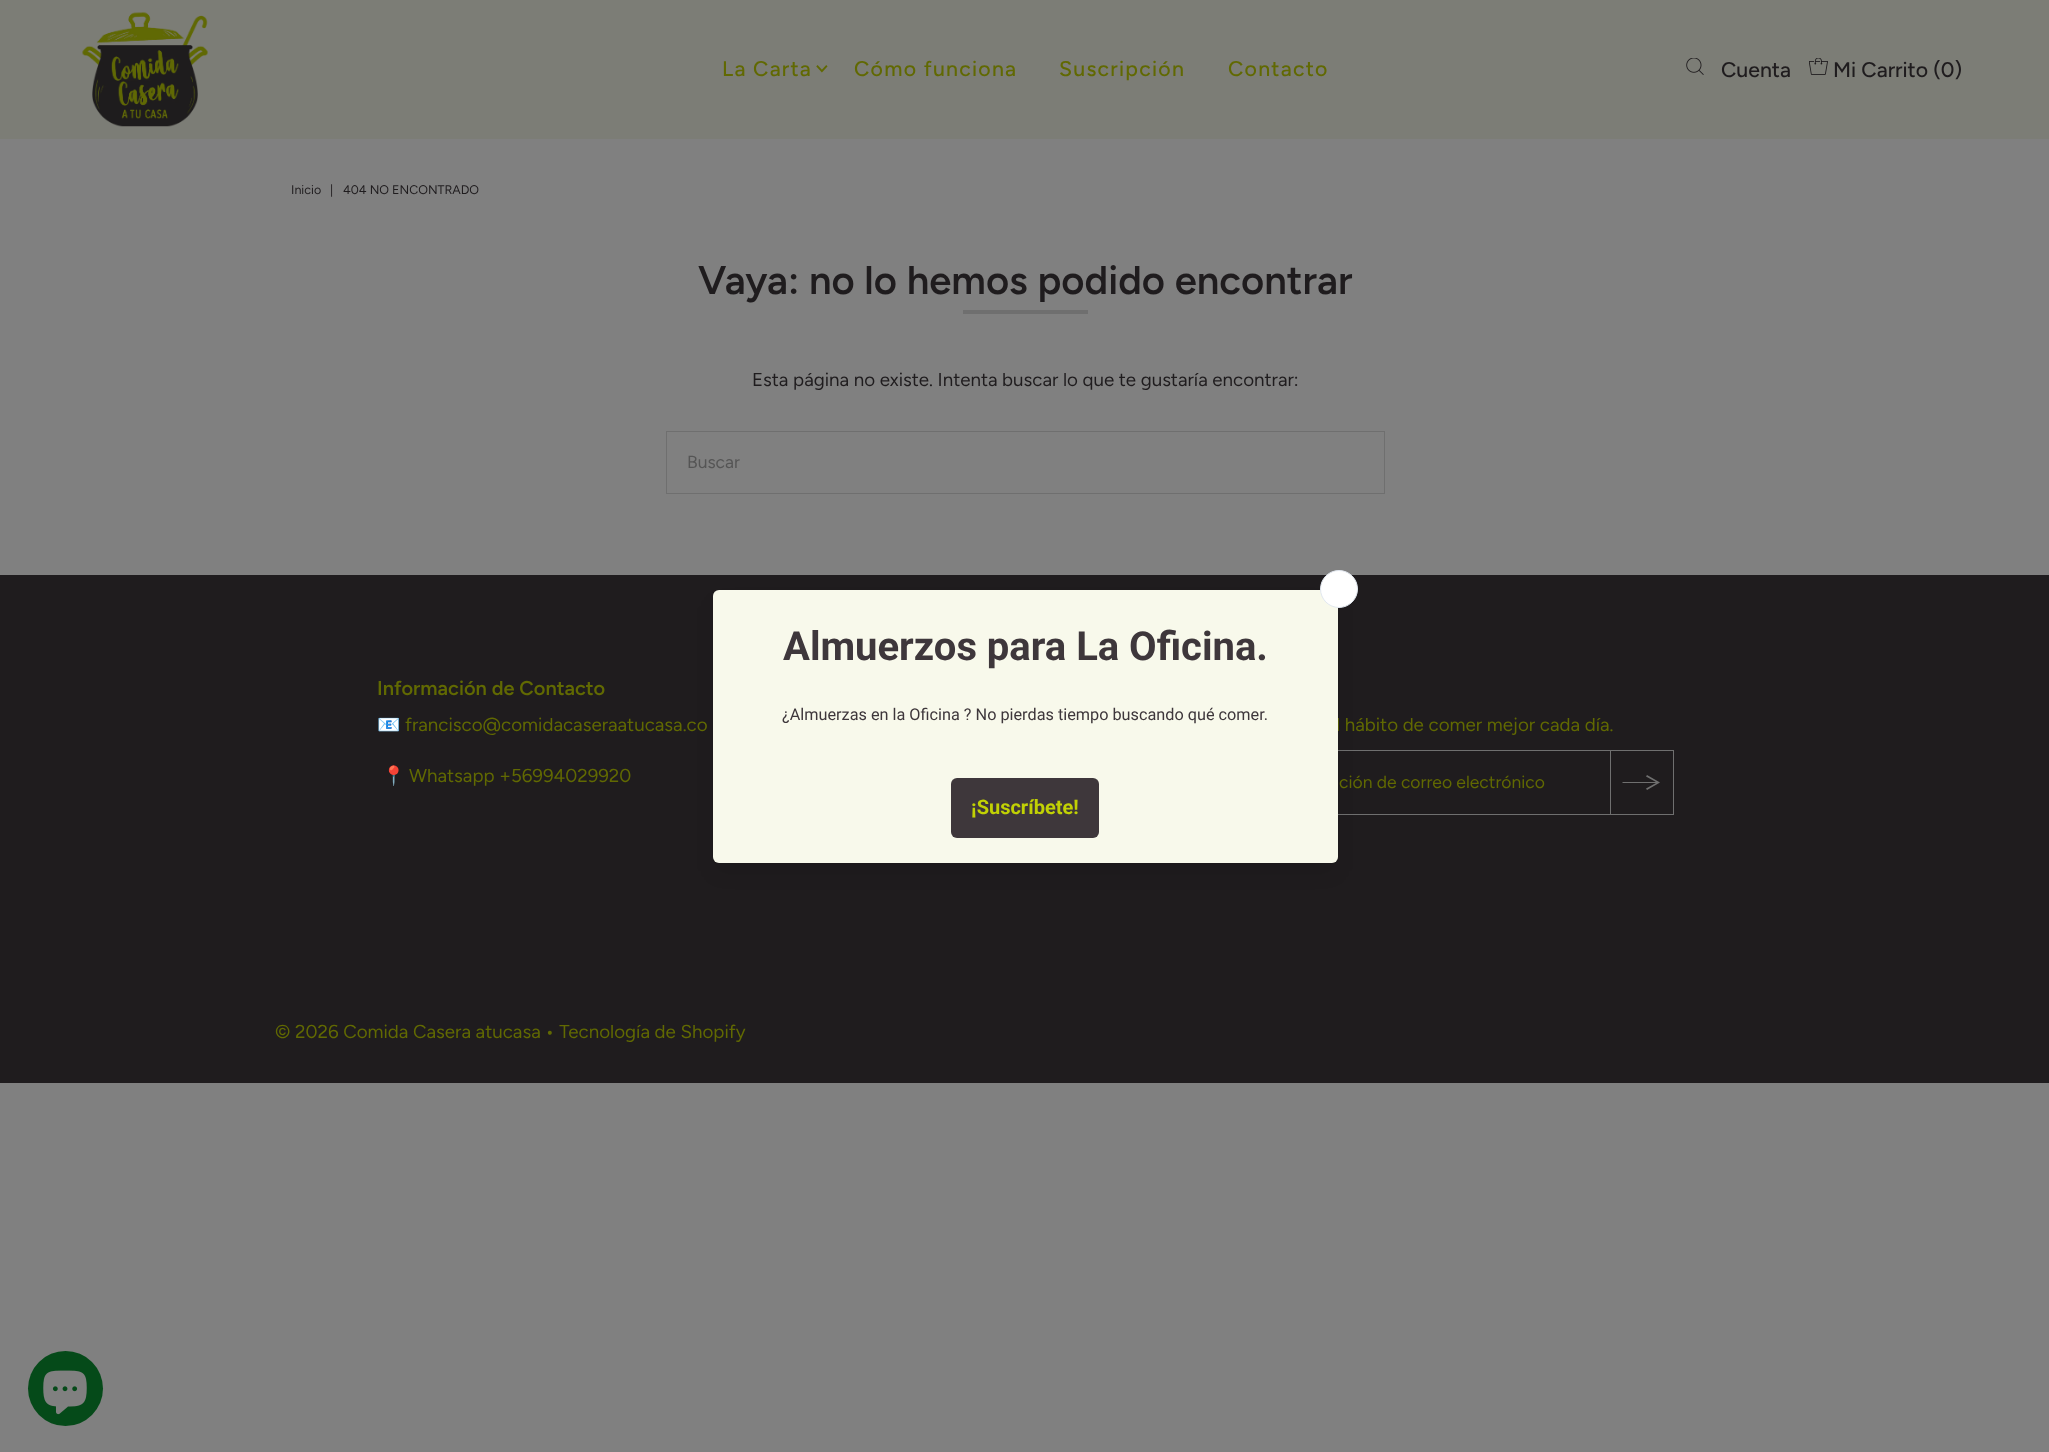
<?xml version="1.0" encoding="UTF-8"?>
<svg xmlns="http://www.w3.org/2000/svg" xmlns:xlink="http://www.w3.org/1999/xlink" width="2049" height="1452">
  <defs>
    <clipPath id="clip1"><rect x="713" y="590" width="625" height="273" /></clipPath>
  </defs>
  <rect width="100%" height="100%" fill="#808080" />
  <rect width="2049" height="139" fill="#7c7d76" />
  <image x="82" y="12" width="126" height="115" xlink:href="image1.png" />
  <image x="816" y="65" width="12" height="8" xlink:href="image2.png" />
  <image x="1686" y="58" width="18" height="17" xlink:href="image3.png" />
  <image x="1809" y="58" width="19" height="17" xlink:href="image4.png" />
  <rect x="963" y="310" width="125" height="4" fill="#6f6f6f" />
  <rect x="666.5" y="431.5" width="718" height="62" fill="none" stroke="#6f6f6f" />
  <rect y="575" width="2049" height="508" fill="#1f1c1e" />
  <rect x="1176.5" y="750.5" width="497" height="64" fill="none" stroke="#6f6f6f" />
  <rect x="1610" y="751" width="1" height="63" fill="#6f6f6f" />
  <path d="M 1647 775 l 13 7.5 l -13 7.5 l -1 -1.5 l 10 -5.5 h -33.5 v -1 h 33.5 l -10 -5.5 z" fill="#6f6f6f" />
  <rect x="716" y="606" width="618" height="265" rx="2.5" fill="#000000" fill-opacity="0.1" filter="blur(9.5px)" />
  <g clip-path="url(#clip1)">
    <rect x="716" y="594" width="618" height="265" rx="2.5" fill="#000000" fill-opacity="0.12" filter="blur(12.5px)" />
  </g>
  <circle cx="65.5" cy="1388.5" r="37.5" fill="#054a19" />
  <image x="43" y="1370" width="44" height="45" xlink:href="image5.png" />
  <text x="722" y="76" style="font-family: Figtree; font-size: 21.25px; font-weight: 500; letter-spacing: 1.25px; fill: #616902">La Carta</text>
  <text x="854" y="76" style="font-family: Figtree; font-size: 21.25px; font-weight: 500; letter-spacing: 1.25px; fill: #616902">Cómo funciona</text>
  <text x="1059" y="76" style="font-family: Figtree; font-size: 21.25px; font-weight: 500; letter-spacing: 1.25px; fill: #616902">Suscripción</text>
  <text x="1228" y="76" style="font-family: Figtree; font-size: 21.25px; font-weight: 500; letter-spacing: 1.25px; fill: #616902">Contacto</text>
  <text x="1721" y="77" style="font-family: Figtree; font-size: 21.25px; font-weight: 500; fill: #1f1c1e">Cuenta</text>
  <text x="1833" y="77" style="font-family: Figtree; font-size: 21.25px; font-weight: 500; fill: #1f1c1e">Mi Carrito (0)</text>
  <text x="291" y="194" style="font-family: Figtree; font-size: 12.5px; fill: #1f1c1e">Inicio</text>
  <text x="330" y="194" style="font-family: Figtree; font-size: 12.5px; fill: #1f1c1e">|</text>
  <text x="343" y="194" style="font-family: Figtree; font-size: 12.5px; fill: #1f1c1e">404 NO ENCONTRADO</text>
  <text x="698" y="294" style="font-family: Figtree; font-size: 40px; font-weight: 600; fill: #1f1c1e">Vaya: no lo hemos podido encontrar</text>
  <text x="752" y="386" style="font-family: Figtree; font-size: 18.75px; fill: #1f1c1e">Esta página no existe. Intenta buscar lo que te gustaría encontrar:</text>
  <text x="687" y="468" style="font-family: Figtree; font-size: 17.5px; fill: #555555">Buscar</text>
  <text x="377" y="695" style="font-family: Figtree; font-size: 20px; font-weight: 600; fill: #616902">Información de Contacto</text>
  <text x="377" y="731" style="font-family: Noto Color Emoji; font-size: 18.75px; fill: #616902">📧</text>
  <text x="405" y="731" style="font-family: Figtree; font-size: 18.75px; fill: #616902">francisco@comidacaseraatucasa.co</text>
  <text x="382" y="782" style="font-family: Noto Color Emoji; font-size: 18.75px; fill: #616902">📍</text>
  <text x="409" y="782" style="font-family: Figtree; font-size: 18.75px; fill: #616902">Whatsapp +56994029920</text>
  <text x="1336" y="731" style="font-family: Figtree; font-size: 18.75px; fill: #616902">l hábito de comer mejor cada día.</text>
  <text x="1339" y="788" style="font-family: Figtree; font-size: 17.5px; fill: #616902">ción de correo electrónico</text>
  <text x="275" y="1038" style="font-family: Figtree; font-size: 18.75px; fill: #616902">© 2026 Comida Casera atucasa • Tecnología de Shopify</text>
  <rect x="713" y="590" width="625" height="273" rx="6" fill="#f8f9eb" />
  <circle cx="1339" cy="589" r="18.5" fill="#ffffff" stroke="#e2e8f0" />
  <text x="783" y="660" style="font-family: Roboto; font-size: 40px; font-weight: bold; fill: #3e373b">Almuerzos para La Oficina.</text>
  <text x="782" y="720" style="font-family: Roboto; font-size: 16.25px; fill: #3e373b">¿Almuerzas en la Oficina ? No pierdas tiempo buscando qué comer.</text>
  <rect x="951" y="778" width="148" height="60" rx="6" fill="#3e373b" />
  <text x="971" y="814" style="font-family: Roboto; font-size: 20px; font-weight: bold; fill: #c1d104">¡Suscríbete!</text>
</svg>
